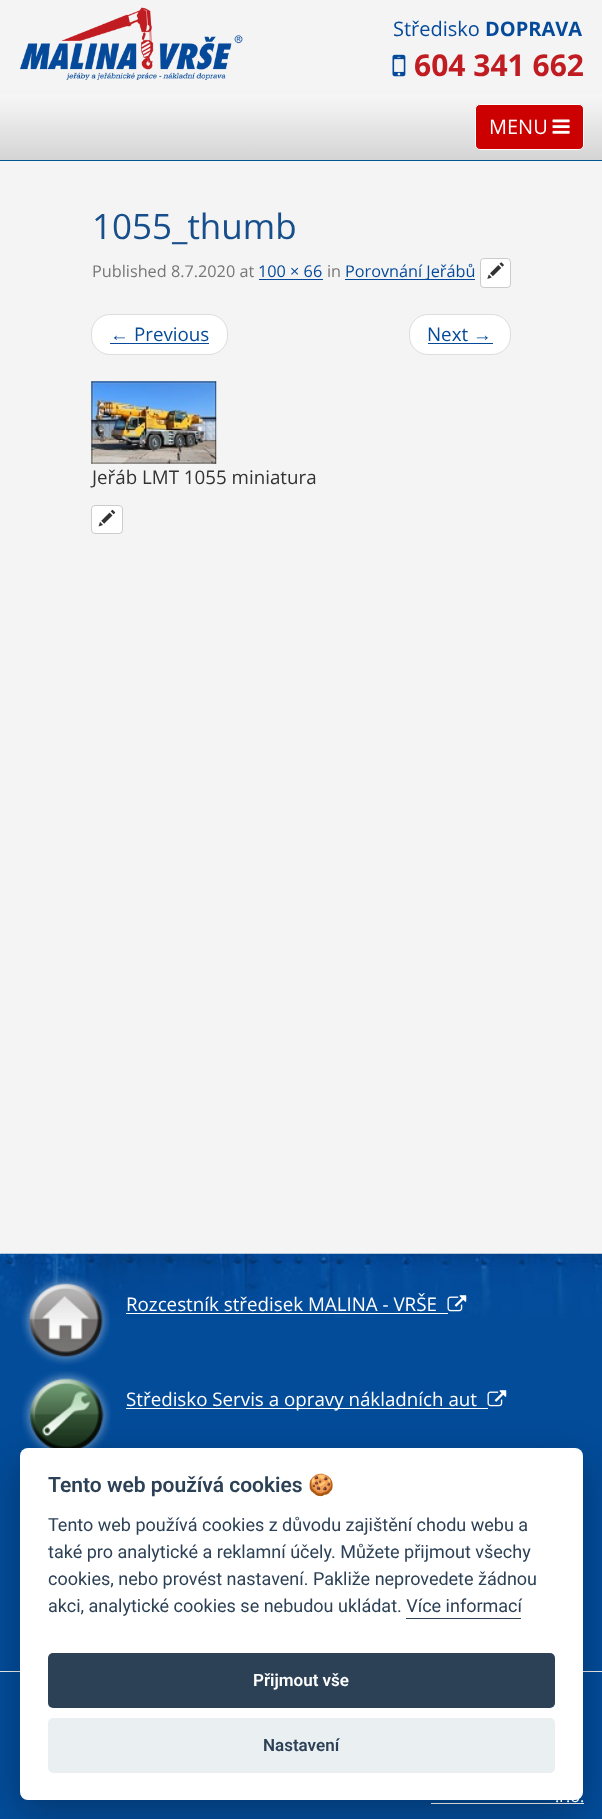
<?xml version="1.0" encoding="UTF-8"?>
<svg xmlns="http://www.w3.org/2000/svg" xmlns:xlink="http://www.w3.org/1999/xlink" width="602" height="1819">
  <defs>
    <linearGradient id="g1" gradientUnits="userSpaceOnUse" x1="301" y1="94" x2="301" y2="160"><stop offset="0" stop-color="#f7f7f7" /><stop offset="1" stop-color="#d4d4d4" /></linearGradient>
  </defs>
  <rect width="100%" height="100%" fill="#f4f4f4" />
  <image x="20" y="7" width="223" height="73" xlink:href="image1.png" />
  <image x="392" y="54" width="14" height="23" xlink:href="image2.png" />
  <rect y="94" width="602" height="66" fill="url(#g1)" />
  <rect y="160" width="602" height="1" fill="#025493" />
  <rect x="475.5" y="104.5" width="108" height="45" rx="4.5" fill="#cc0000" stroke="#ffffff" />
  <image x="552" y="119" width="18" height="15" xlink:href="image3.png" />
  <rect x="259" y="279" width="64" height="1" fill="#054a9a" />
  <rect x="345" y="279" width="130" height="1" fill="#054a9a" />
  <rect x="480.5" y="258.5" width="30" height="29" rx="3.5" fill="#ffffff" stroke="#cccccc" />
  <image x="487" y="262" width="17" height="17" xlink:href="image4.png" />
  <rect x="91.5" y="314.5" width="136" height="40" rx="18.5" fill="#ffffff" stroke="#dddddd" />
  <rect x="110" y="343" width="99" height="1" fill="#054a9a" />
  <rect x="409.5" y="314.5" width="101" height="40" rx="18.5" fill="#ffffff" stroke="#dddddd" />
  <rect x="428" y="343" width="65" height="1" fill="#054a9a" />
  <image x="91" y="381" width="126" height="83" xlink:href="image5.png" />
  <rect x="91.5" y="505.5" width="31" height="28" rx="3.5" fill="#ffffff" stroke="#cccccc" />
  <image x="98" y="509" width="18" height="18" xlink:href="image6.png" />
  <rect y="1318" width="602" height="501" fill="#034c9a" />
  <image x="0" y="1253" width="602" height="65" xlink:href="image7.png" />
  <image x="21" y="1275" width="89" height="90" xlink:href="image8.png" />
  <rect x="126" y="1313" width="322" height="1" fill="#ffffff" />
  <image x="447" y="1295" width="20" height="17" xlink:href="image9.png" />
  <image x="22" y="1371" width="89" height="77" xlink:href="image10.png" />
  <rect x="126" y="1408" width="362" height="1" fill="#ffffff" />
  <image x="487" y="1390" width="20" height="17" xlink:href="image11.png" />
  <rect y="1671" width="602" height="1" fill="#eeeeee" />
  <rect x="431" y="1803" width="153" height="1" fill="#ffffff" />
  <rect x="20" y="1460" width="563" height="353" rx="8" fill="#020203" fill-opacity="0.28" filter="blur(19px)" />
  <rect x="20" y="1448" width="563" height="352" rx="8" fill="#ffffff" />
  <rect x="406" y="1618" width="115" height="1" fill="#2d4156" />
  <rect x="48" y="1653" width="507" height="55" rx="5" fill="#2d4156" />
  <rect x="48" y="1718" width="507" height="55" rx="5" fill="#eaeff2" />
  <text x="393" y="36" style="font-family: Open Sans; font-size: 20px; fill: #054a9a">Středisko</text>
  <text x="485" y="36" style="font-family: Open Sans; font-size: 20px; font-weight: bold; fill: #054a9a">DOPRAVA</text>
  <text x="414" y="76" style="font-family: Open Sans; font-size: 30px; font-weight: bold; fill: #c01c21">604 341 662</text>
  <text x="489" y="134" style="font-family: Open Sans; font-size: 20px; fill: #ffffff">MENU</text>
  <text x="92" y="239" style="font-family: Open Sans; font-size: 35px; fill: #174e8c">1055_thumb</text>
  <text x="92" y="277" style="font-family: Open Sans; font-size: 16.25px; fill: #777777">Published 8.7.2020 at</text>
  <text x="258" y="277" style="font-family: Open Sans; font-size: 16.25px; fill: #054a9a">100 × 66</text>
  <text x="327" y="277" style="font-family: Open Sans; font-size: 16.25px; fill: #777777">in</text>
  <text x="345" y="277" style="font-family: Open Sans; font-size: 16.25px; fill: #054a9a">Porovnání Jeřábů</text>
  <text x="110" y="341" style="font-family: Liberation Sans; font-size: 18.75px; fill: #054a9a">←</text>
  <text x="134" y="341" style="font-family: Open Sans; font-size: 18.75px; fill: #054a9a">Previous</text>
  <text x="427" y="341" style="font-family: Open Sans; font-size: 18.75px; fill: #054a9a">Next</text>
  <text x="473" y="341" style="font-family: Liberation Sans; font-size: 18.75px; fill: #054a9a">→</text>
  <text x="92" y="484" style="font-family: Open Sans; font-size: 18.75px; fill: #333333">Jeřáb LMT 1055 miniatura</text>
  <text x="126" y="1311" style="font-family: Open Sans; font-size: 18.75px; fill: #ffffff">Rozcestník středisek MALINA - VRŠE</text>
  <text x="126" y="1406" style="font-family: Open Sans; font-size: 18.75px; fill: #ffffff">Středisko Servis a opravy nákladních aut</text>
  <text x="555" y="1802" style="font-family: Open Sans; font-size: 16.25px; fill: #ffffff">.r.o.</text>
  <text x="48" y="1492" style="font-family: Roboto; font-size: 21px; font-weight: 600; fill: #2d4156">Tento web používá cookies</text>
  <text x="308" y="1492" style="font-family: Noto Color Emoji; font-size: 21px; font-weight: bold; fill: #2d4156">🍪</text>
  <text x="48" y="1531" style="font-family: Roboto; font-size: 18px; fill: #2d4156">Tento web používá cookies z důvodu zajištění chodu webu a</text>
  <text x="48" y="1558" style="font-family: Roboto; font-size: 18px; fill: #2d4156">také pro analytické a reklamní účely. Můžete přijmout všechy</text>
  <text x="48" y="1585" style="font-family: Roboto; font-size: 18px; fill: #2d4156">cookies, nebo provést nastavení. Pakliže neprovedete žádnou</text>
  <text x="48" y="1612" style="font-family: Roboto; font-size: 18px; fill: #2d4156">akci, analytické cookies se nebudou ukládat. Více informací</text>
  <text x="253" y="1686" style="font-family: Roboto; font-size: 17px; font-weight: 600; fill: #ffffff">Přijmout vše</text>
  <text x="263" y="1751" style="font-family: Roboto; font-size: 17px; font-weight: 600; fill: #2d4156">Nastavení</text>
</svg>
